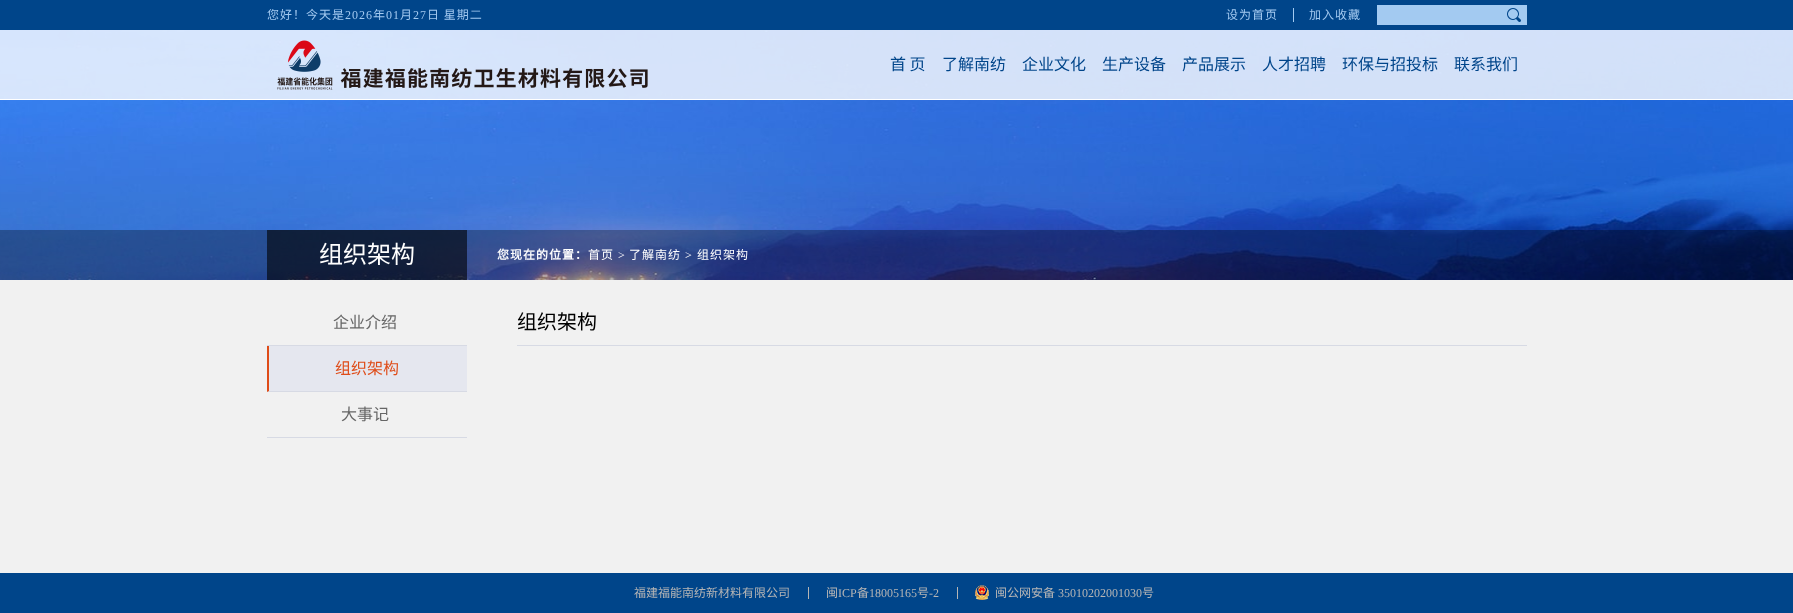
<?xml version="1.0" encoding="UTF-8"?>
<svg xmlns="http://www.w3.org/2000/svg" xmlns:xlink="http://www.w3.org/1999/xlink" width="1793" height="613">
  <rect width="100%" height="100%" fill="#f1f1f1" />
  <rect width="1793" height="30" fill="#00458a" />
  <rect x="1293" y="8" width="1" height="14" fill="#a3caf1" />
  <rect x="1377" y="5" width="150" height="20" fill="#a3caf1" />
  <image x="1507" y="8" width="14" height="14" xlink:href="image1.png" />
  <image x="0" y="30" width="1793" height="250" xlink:href="image3.png" />
  <rect y="30" width="1793" height="69" fill="#ffffff" fill-opacity="0.8" />
  <rect y="99" width="1793" height="1" fill="#ffffff" />
  <image x="277" y="40" width="371" height="50" xlink:href="image2.png" />
  <rect y="230" width="1793" height="50" fill="#000000" fill-opacity="0.3" />
  <rect x="267" y="230" width="200" height="50" fill="#000000" fill-opacity="0.6" />
  <rect x="267" y="345" width="200" height="1" fill="#d7dae4" />
  <rect x="267" y="346" width="200" height="46" fill="#e5e7ef" />
  <path d="M 467 392 h -200 l 2 -1 h 198 z" fill="#d7dae4" />
  <path d="M 267 392 v -46 h 2 v 45 z" fill="#df4c18" />
  <rect x="267" y="437" width="200" height="1" fill="#d7dae4" />
  <rect x="517" y="345" width="1010" height="1" fill="#d7dae4" />
  <rect y="573" width="1793" height="40" fill="#00458a" />
  <rect x="808" y="587" width="1" height="12" fill="#b5b5b5" />
  <rect x="957" y="587" width="1" height="12" fill="#b5b5b5" />
  <image x="975" y="585" width="14" height="15" xlink:href="image4.png" />
  <text x="267" y="19" style="font-family: Noto Sans CJK SC; font-size: 12px; letter-spacing: 1px; fill: #a3caf1">您好！今天是</text>
  <text x="345" y="19" style="font-family: Liberation Serif; font-size: 12px; letter-spacing: 1px; fill: #a3caf1">2026</text>
  <text x="373" y="19" style="font-family: Noto Sans CJK SC; font-size: 12px; letter-spacing: 1px; fill: #a3caf1">年</text>
  <text x="386" y="19" style="font-family: Liberation Serif; font-size: 12px; letter-spacing: 1px; fill: #a3caf1">01</text>
  <text x="400" y="19" style="font-family: Noto Sans CJK SC; font-size: 12px; letter-spacing: 1px; fill: #a3caf1">月</text>
  <text x="413" y="19" style="font-family: Liberation Serif; font-size: 12px; letter-spacing: 1px; fill: #a3caf1">27</text>
  <text x="427" y="19" style="font-family: Noto Sans CJK SC; font-size: 12px; letter-spacing: 1px; fill: #a3caf1">日 星期二</text>
  <text x="1226" y="19" style="font-family: Noto Sans CJK SC; font-size: 12px; letter-spacing: 1px; fill: #a3caf1">设为首页</text>
  <text x="1309" y="19" style="font-family: Noto Sans CJK SC; font-size: 12px; letter-spacing: 1px; fill: #a3caf1">加入收藏</text>
  <text x="890" y="70" style="font-family: Noto Sans CJK SC; font-size: 16px; fill: #00458a">首 页</text>
  <text x="942" y="70" style="font-family: Noto Sans CJK SC; font-size: 16px; fill: #00458a">了解南纺</text>
  <text x="1022" y="70" style="font-family: Noto Sans CJK SC; font-size: 16px; fill: #00458a">企业文化</text>
  <text x="1102" y="70" style="font-family: Noto Sans CJK SC; font-size: 16px; fill: #00458a">生产设备</text>
  <text x="1182" y="70" style="font-family: Noto Sans CJK SC; font-size: 16px; fill: #00458a">产品展示</text>
  <text x="1262" y="70" style="font-family: Noto Sans CJK SC; font-size: 16px; fill: #00458a">人才招聘</text>
  <text x="1342" y="70" style="font-family: Noto Sans CJK SC; font-size: 16px; fill: #00458a">环保与招投标</text>
  <text x="1454" y="70" style="font-family: Noto Sans CJK SC; font-size: 16px; fill: #00458a">联系我们</text>
  <text x="319" y="263" style="font-family: Noto Sans CJK SC; font-size: 24px; fill: #ffffff">组织架构</text>
  <text x="497" y="259" style="font-family: Noto Sans CJK SC; font-size: 12px; font-weight: bold; letter-spacing: 1px; fill: #ffffff">您现在的位置：</text>
  <text x="588" y="259" style="font-family: Noto Sans CJK SC; font-size: 12px; letter-spacing: 1px; fill: #ffffff">首页</text>
  <text x="618" y="259" style="font-family: Liberation Serif; font-size: 12px; letter-spacing: 1px; fill: #ffffff">&gt;</text>
  <text x="629" y="259" style="font-family: Noto Sans CJK SC; font-size: 12px; letter-spacing: 1px; fill: #ffffff">了解南纺</text>
  <text x="685" y="259" style="font-family: Liberation Serif; font-size: 12px; letter-spacing: 1px; fill: #ffffff">&gt;</text>
  <text x="697" y="259" style="font-family: Noto Sans CJK SC; font-size: 12px; letter-spacing: 1px; fill: #ffffff">组织架构</text>
  <text x="333" y="328" style="font-family: Noto Sans CJK SC; font-size: 16px; fill: #666666">企业介绍</text>
  <text x="335" y="374" style="font-family: Noto Sans CJK SC; font-size: 16px; fill: #df4c18">组织架构</text>
  <text x="341" y="420" style="font-family: Noto Sans CJK SC; font-size: 16px; fill: #666666">大事记</text>
  <text x="517" y="329" style="font-family: Noto Sans CJK SC; font-size: 20px; fill: #000000">组织架构</text>
  <text x="634" y="597" style="font-family: Noto Sans CJK SC; font-size: 12px; fill: #b5b5b5">福建福能南纺新材料有限公司</text>
  <text x="826" y="597" style="font-family: Noto Sans CJK SC; font-size: 12px; fill: #b5b5b5">闽</text>
  <text x="838" y="597" style="font-family: Liberation Serif; font-size: 12px; fill: #b5b5b5">ICP</text>
  <text x="857" y="597" style="font-family: Noto Sans CJK SC; font-size: 12px; fill: #b5b5b5">备</text>
  <text x="869" y="597" style="font-family: Liberation Serif; font-size: 12px; fill: #b5b5b5">18005165</text>
  <text x="917" y="597" style="font-family: Noto Sans CJK SC; font-size: 12px; fill: #b5b5b5">号</text>
  <text x="929" y="597" style="font-family: Liberation Serif; font-size: 12px; fill: #b5b5b5">-2</text>
  <text x="995" y="597" style="font-family: Noto Sans CJK SC; font-size: 12px; fill: #b5b5b5">闽公网安备</text>
  <text x="1058" y="597" style="font-family: Liberation Serif; font-size: 12px; fill: #b5b5b5">35010202001030</text>
  <text x="1142" y="597" style="font-family: Noto Sans CJK SC; font-size: 12px; fill: #b5b5b5">号</text>
</svg>
